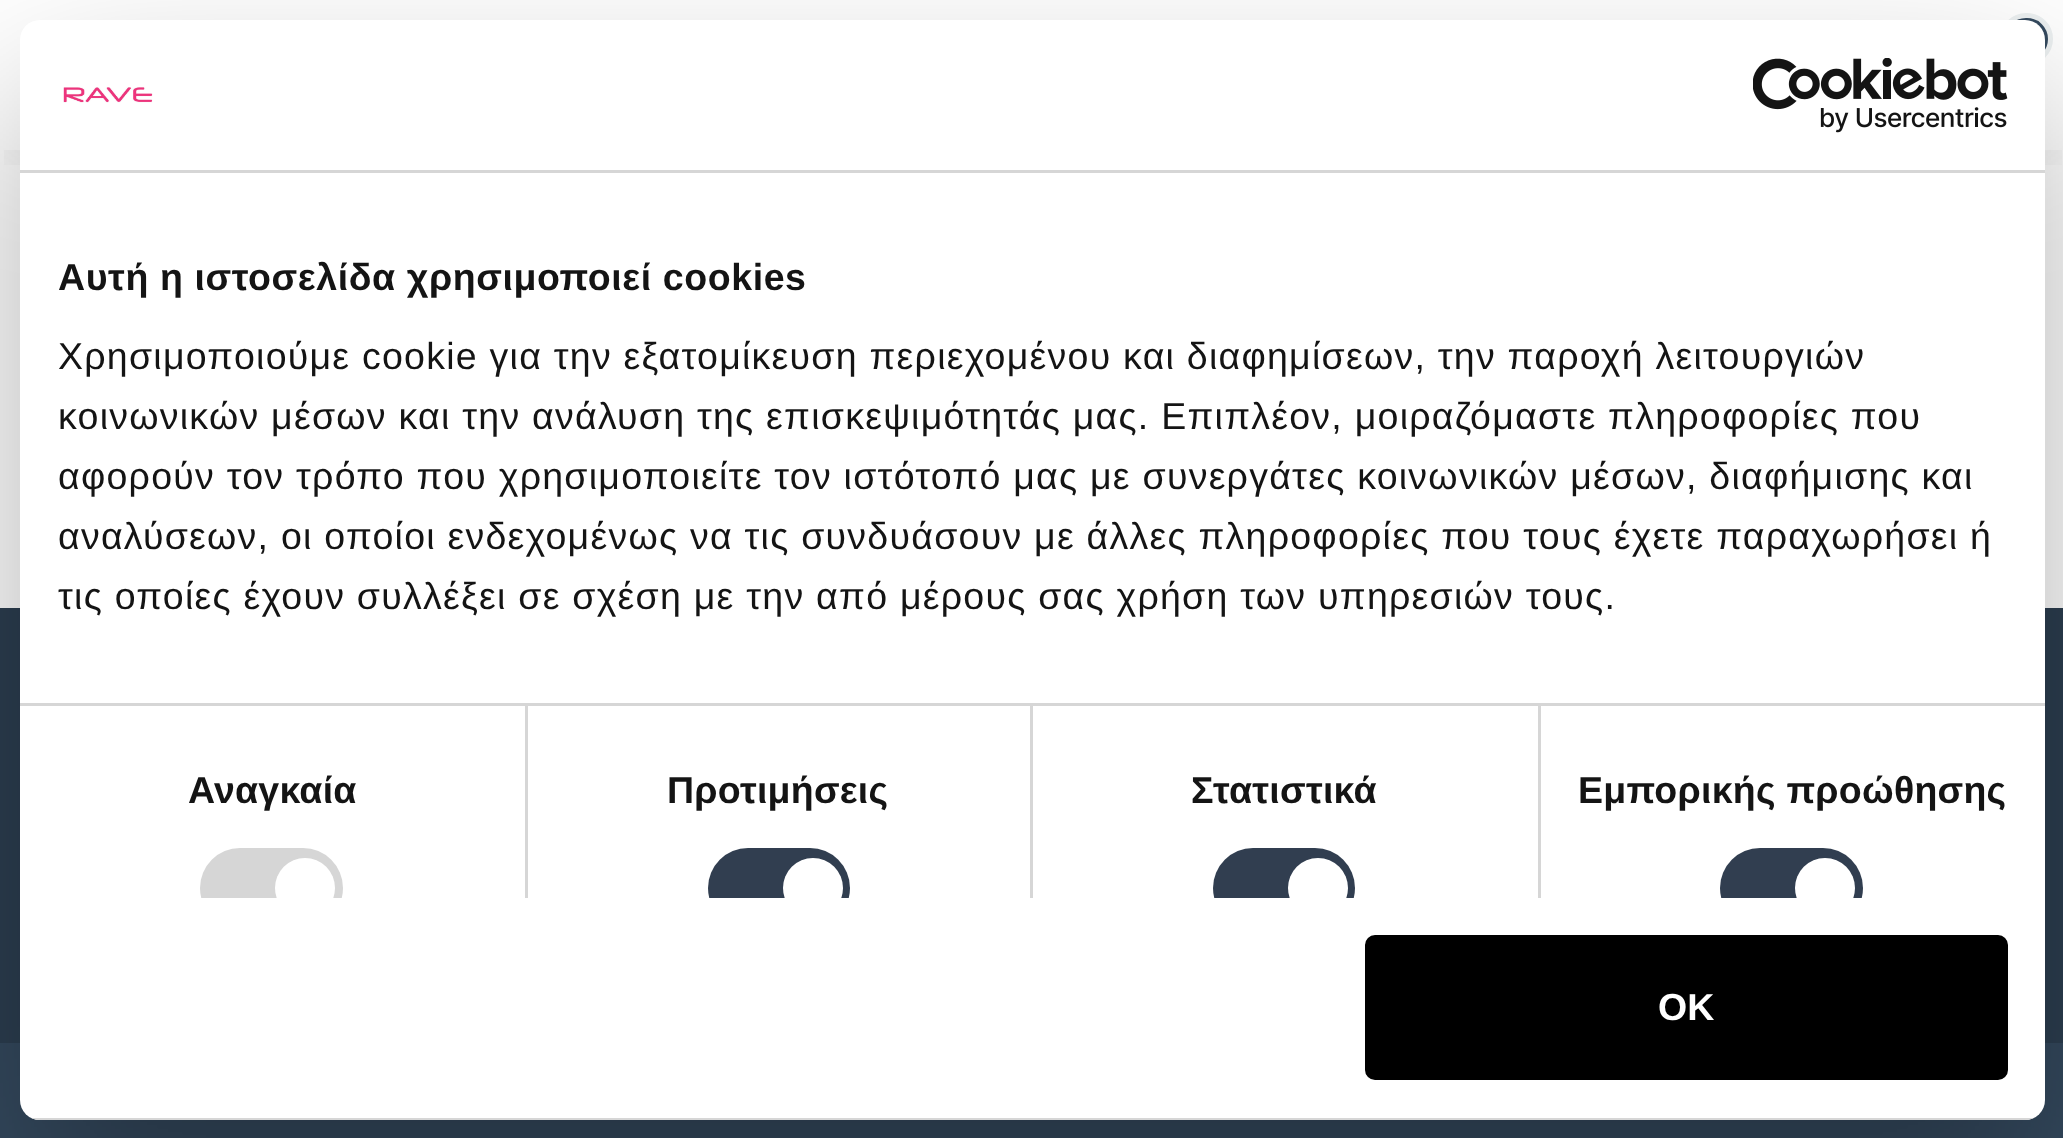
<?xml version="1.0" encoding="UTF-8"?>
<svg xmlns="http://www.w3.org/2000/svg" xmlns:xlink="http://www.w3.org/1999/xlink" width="2063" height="1138">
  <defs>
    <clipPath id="clip1"><rect x="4" y="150" width="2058" height="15" /></clipPath>
    <clipPath id="clip2"><rect x="20" y="173" width="2025" height="725" /></clipPath>
    <clipPath id="clip3"><rect x="20" y="20" width="2025" height="1100" rx="20" /></clipPath>
  </defs>
  <rect width="100%" height="100%" fill="#ffffff" />
  <g clip-path="url(#clip1)">
    <rect x="13" y="25" width="2040" height="125" fill="#000000" fill-opacity="0.1" filter="blur(37.5px)" />
  </g>
  <rect x="2002.5" y="15.5" width="48" height="47" rx="23.5" fill="#34495e" stroke="#ecf0f1" stroke-width="5" />
  <rect y="608" width="2063" height="435" fill="#2c3e50" />
  <rect y="1043" width="2063" height="95" fill="#34495e" />
  <rect x="20" y="100" width="2025" height="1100" rx="20" fill="#000000" fill-opacity="0.3" filter="blur(85px)" />
  <rect x="20" y="20" width="2025" height="1100" rx="20" fill="#ffffff" />
  <rect x="20" y="170" width="2025" height="3" fill="#d6d6d6" />
  <image x="63" y="87" width="90" height="16" xlink:href="image1.png" />
  <image x="1753" y="58" width="255" height="75" xlink:href="image2.png" />
  <rect x="525" y="705" width="3" height="193" fill="#d6d6d6" />
  <rect x="1030" y="705" width="3" height="193" fill="#d6d6d6" />
  <rect x="1538" y="705" width="3" height="193" fill="#d6d6d6" />
  <rect x="20" y="703" width="2025" height="3" fill="#d6d6d6" />
  <g clip-path="url(#clip2)">
    <rect x="200" y="848" width="143" height="80" rx="40" fill="#d6d6d6" />
    <circle cx="305" cy="888" r="30" fill="#ffffff" />
    <rect x="708" y="848" width="142" height="80" rx="40" fill="#313e50" />
    <circle cx="813" cy="888" r="30" fill="#ffffff" />
    <rect x="1213" y="848" width="142" height="80" rx="40" fill="#313e50" />
    <circle cx="1318" cy="888" r="30" fill="#ffffff" />
    <rect x="1720" y="848" width="143" height="80" rx="40" fill="#313e50" />
    <circle cx="1825" cy="888" r="30" fill="#ffffff" />
  </g>
  <g clip-path="url(#clip3)">
    <rect x="31" y="1118" width="2003" height="2" fill="#d6d6d6" />
  </g>
  <rect x="1367.5" y="937.5" width="638" height="140" rx="7.5" fill="#000000" stroke="#000000" stroke-width="5" />
  <text x="58" y="290" style="font-family: Liberation Sans; font-size: 37.5px; font-weight: bold; letter-spacing: 0.6px; fill: #141414">Αυτή η ιστοσελίδα χρησιμοποιεί cookies</text>
  <text x="58" y="369" style="font-family: Liberation Sans; font-size: 37.5px; letter-spacing: 1.25px; fill: #141414">Χρησιμοποιούμε cookie για την εξατομίκευση περιεχομένου και διαφημίσεων, την παροχή λειτουργιών</text>
  <text x="58" y="429" style="font-family: Liberation Sans; font-size: 37.5px; letter-spacing: 1.25px; fill: #141414">κοινωνικών μέσων και την ανάλυση της επισκεψιμότητάς μας. Επιπλέον, μοιραζόμαστε πληροφορίες που</text>
  <text x="58" y="489" style="font-family: Liberation Sans; font-size: 37.5px; letter-spacing: 1.25px; fill: #141414">αφορούν τον τρόπο που χρησιμοποιείτε τον ιστότοπό μας με συνεργάτες κοινωνικών μέσων, διαφήμισης και</text>
  <text x="58" y="549" style="font-family: Liberation Sans; font-size: 37.5px; letter-spacing: 1.25px; fill: #141414">αναλύσεων, οι οποίοι ενδεχομένως να τις συνδυάσουν με άλλες πληροφορίες που τους έχετε παραχωρήσει ή</text>
  <text x="58" y="609" style="font-family: Liberation Sans; font-size: 37.5px; letter-spacing: 1.25px; fill: #141414">τις οποίες έχουν συλλέξει σε σχέση με την από μέρους σας χρήση των υπηρεσιών τους.</text>
  <text x="188" y="803" style="font-family: Liberation Sans; font-size: 37.5px; font-weight: bold; letter-spacing: 0.25px; fill: #141414">Αναγκαία</text>
  <text x="667" y="803" style="font-family: Liberation Sans; font-size: 37.5px; font-weight: bold; letter-spacing: 0.25px; fill: #141414">Προτιμήσεις</text>
  <text x="1191" y="803" style="font-family: Liberation Sans; font-size: 37.5px; font-weight: bold; letter-spacing: 0.25px; fill: #141414">Στατιστικά</text>
  <text x="1578" y="803" style="font-family: Liberation Sans; font-size: 37.5px; font-weight: bold; letter-spacing: 0.25px; fill: #141414">Εμπορικής προώθησης</text>
  <text x="1658" y="1020" style="font-family: Liberation Sans; font-size: 37.5px; font-weight: bold; fill: #ffffff">OK</text>
</svg>
